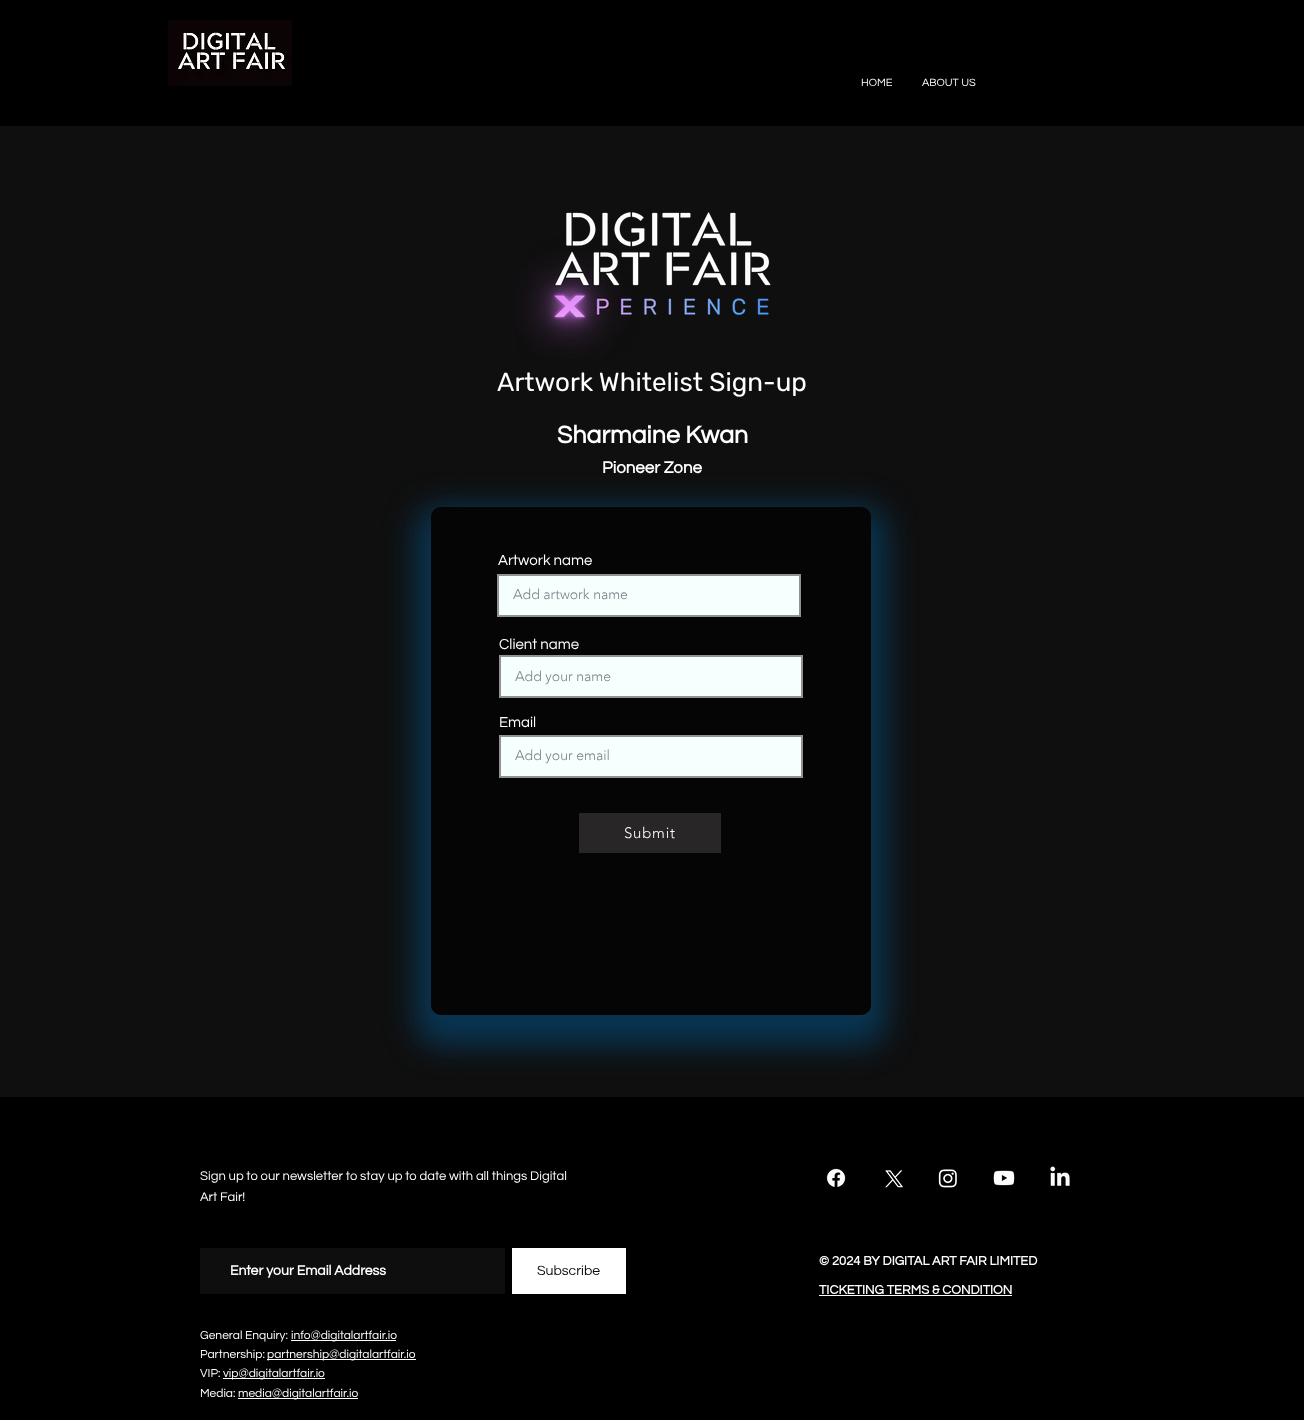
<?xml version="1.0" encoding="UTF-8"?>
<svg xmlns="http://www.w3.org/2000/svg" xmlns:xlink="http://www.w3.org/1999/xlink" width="1304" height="1420">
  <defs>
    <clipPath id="clip1"><path d="M 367 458 h 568 v 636 h -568 z m 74 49 h 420 c 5.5 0 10 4.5 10 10 v 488 c 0 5.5 -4.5 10 -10 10 h -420 c -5.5 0 -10 -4.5 -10 -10 v -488 c 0 -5.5 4.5 -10 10 -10 z" clip-rule="evenodd" /></clipPath>
  </defs>
  <rect width="100%" height="100%" fill="#0f0f0f" />
  <rect width="1304" height="126" fill="#000000" />
  <image x="168" y="20" width="124" height="66" xlink:href="image1.png" />
  <image x="516" y="212" width="255" height="147" xlink:href="image2.png" />
  <g clip-path="url(#clip1)">
    <rect x="415" y="506" width="472" height="540" rx="26" fill="#045184" fill-opacity="0.57" filter="blur(15.5px)" />
  </g>
  <rect x="431" y="507" width="440" height="508" rx="10" fill="#000000" fill-opacity="0.62" />
  <rect x="498" y="575" width="302" height="41" fill="#f5fffe" stroke="#919191" stroke-width="2" />
  <rect x="500" y="656" width="302" height="41" fill="#f5fffe" stroke="#919191" stroke-width="2" />
  <rect x="500" y="736" width="302" height="41" fill="#f5fffe" stroke="#919191" stroke-width="2" />
  <rect x="579" y="813" width="142" height="40" fill="#282626" />
  <rect y="1097" width="1304" height="323" fill="#000000" />
  <image x="826" y="1168" width="20" height="19" xlink:href="image3.png" />
  <image x="885" y="1170" width="19" height="18" xlink:href="image4.png" />
  <image x="938" y="1169" width="19" height="19" xlink:href="image5.png" />
  <image x="993" y="1170" width="22" height="16" xlink:href="image6.png" />
  <image x="1050" y="1166" width="20" height="20" xlink:href="image7.png" />
  <rect x="200" y="1248" width="305" height="46" fill="#0e0e0e" />
  <rect x="512" y="1248" width="114" height="46" fill="#ffffff" />
  <rect x="819" y="1295" width="193" height="1" fill="#fcfcfc" />
  <rect x="291" y="1340" width="105" height="1" fill="#ffffff" />
  <rect x="267" y="1359" width="149" height="1" fill="#ffffff" />
  <rect x="223" y="1378" width="102" height="1" fill="#ffffff" />
  <rect x="238" y="1398" width="120" height="1" fill="#ffffff" />
  <text x="861" y="86" style="font-family: Questrial; font-size: 11px; fill: #ffffff">HOME</text>
  <text x="922" y="86" style="font-family: Questrial; font-size: 11px; fill: #ffffff">ABOUT US</text>
  <text x="497" y="391" style="font-family: Rubik; font-size: 26px; fill: #ffffff">Artwork Whitelist Sign-up</text>
  <text x="557" y="443" style="font-family: Questrial; font-size: 25px; font-weight: bold; fill: #ffffff">Sharmaine Kwan</text>
  <text x="602" y="473" style="font-family: Questrial; font-size: 17px; font-weight: bold; fill: #ffffff">Pioneer Zone</text>
  <text x="498" y="565" style="font-family: Questrial; font-size: 15px; fill: #ffffff">Artwork name</text>
  <text x="513" y="599" style="font-family: 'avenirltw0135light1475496'; font-size: 14px; font-weight: 300; fill: #7f808a">Add artwork name</text>
  <text x="499" y="649" style="font-family: Questrial; font-size: 15px; fill: #ffffff">Client name</text>
  <text x="515" y="681" style="font-family: 'avenirltw0135light1475496'; font-size: 14px; font-weight: 300; fill: #7f808a">Add your name</text>
  <text x="499" y="727" style="font-family: Questrial; font-size: 15px; fill: #ffffff">Email</text>
  <text x="515" y="760" style="font-family: 'avenirltw0135light1475496'; font-size: 14px; font-weight: 300; fill: #7f808a">Add your email</text>
  <text x="624" y="838" style="font-family: 'avenirltw0135light1475496'; font-size: 15px; font-weight: 300; letter-spacing: 0.75px; fill: #ffffff">Submit</text>
  <text x="200" y="1180" style="font-family: Questrial; font-size: 13px; fill: #ffffff">Sign up to our newsletter to stay up to date with all things Digital</text>
  <text x="200" y="1201" style="font-family: Questrial; font-size: 13px; fill: #ffffff">Art Fair!</text>
  <text x="819" y="1265" style="font-family: Questrial; font-size: 13px; font-weight: bold; fill: #ffffff">© 2024 BY DIGITAL ART FAIR LIMITED</text>
  <text x="230" y="1275" style="font-family: Questrial; font-size: 14px; font-weight: bold; fill: #ffffff">Enter your Email Address</text>
  <text x="537" y="1275" style="font-family: Questrial; font-size: 14px; fill: #0e0e0e">Subscribe</text>
  <text x="819" y="1294" style="font-family: Questrial; font-size: 13px; font-weight: bold; fill: #ffffff">TICKETING TERMS &amp; CONDITION</text>
  <text x="200" y="1339" style="font-family: Questrial; font-size: 12px; fill: #ffffff">General Enquiry:</text>
  <text x="291" y="1339" style="font-family: Questrial; font-size: 12px; fill: #ffffff">info@digitalartfair.io</text>
  <text x="200" y="1358" style="font-family: Questrial; font-size: 12px; fill: #ffffff">Partnership:</text>
  <text x="267" y="1358" style="font-family: Questrial; font-size: 12px; fill: #ffffff">partnership@digitalartfair.io</text>
  <text x="200" y="1377" style="font-family: Questrial; font-size: 12px; fill: #ffffff">VIP:</text>
  <text x="223" y="1377" style="font-family: Questrial; font-size: 12px; fill: #ffffff">vip@digitalartfair.io</text>
  <text x="200" y="1397" style="font-family: Questrial; font-size: 12px; fill: #ffffff">Media:</text>
  <text x="238" y="1397" style="font-family: Questrial; font-size: 12px; fill: #ffffff">media@digitalartfair.io</text>
</svg>
